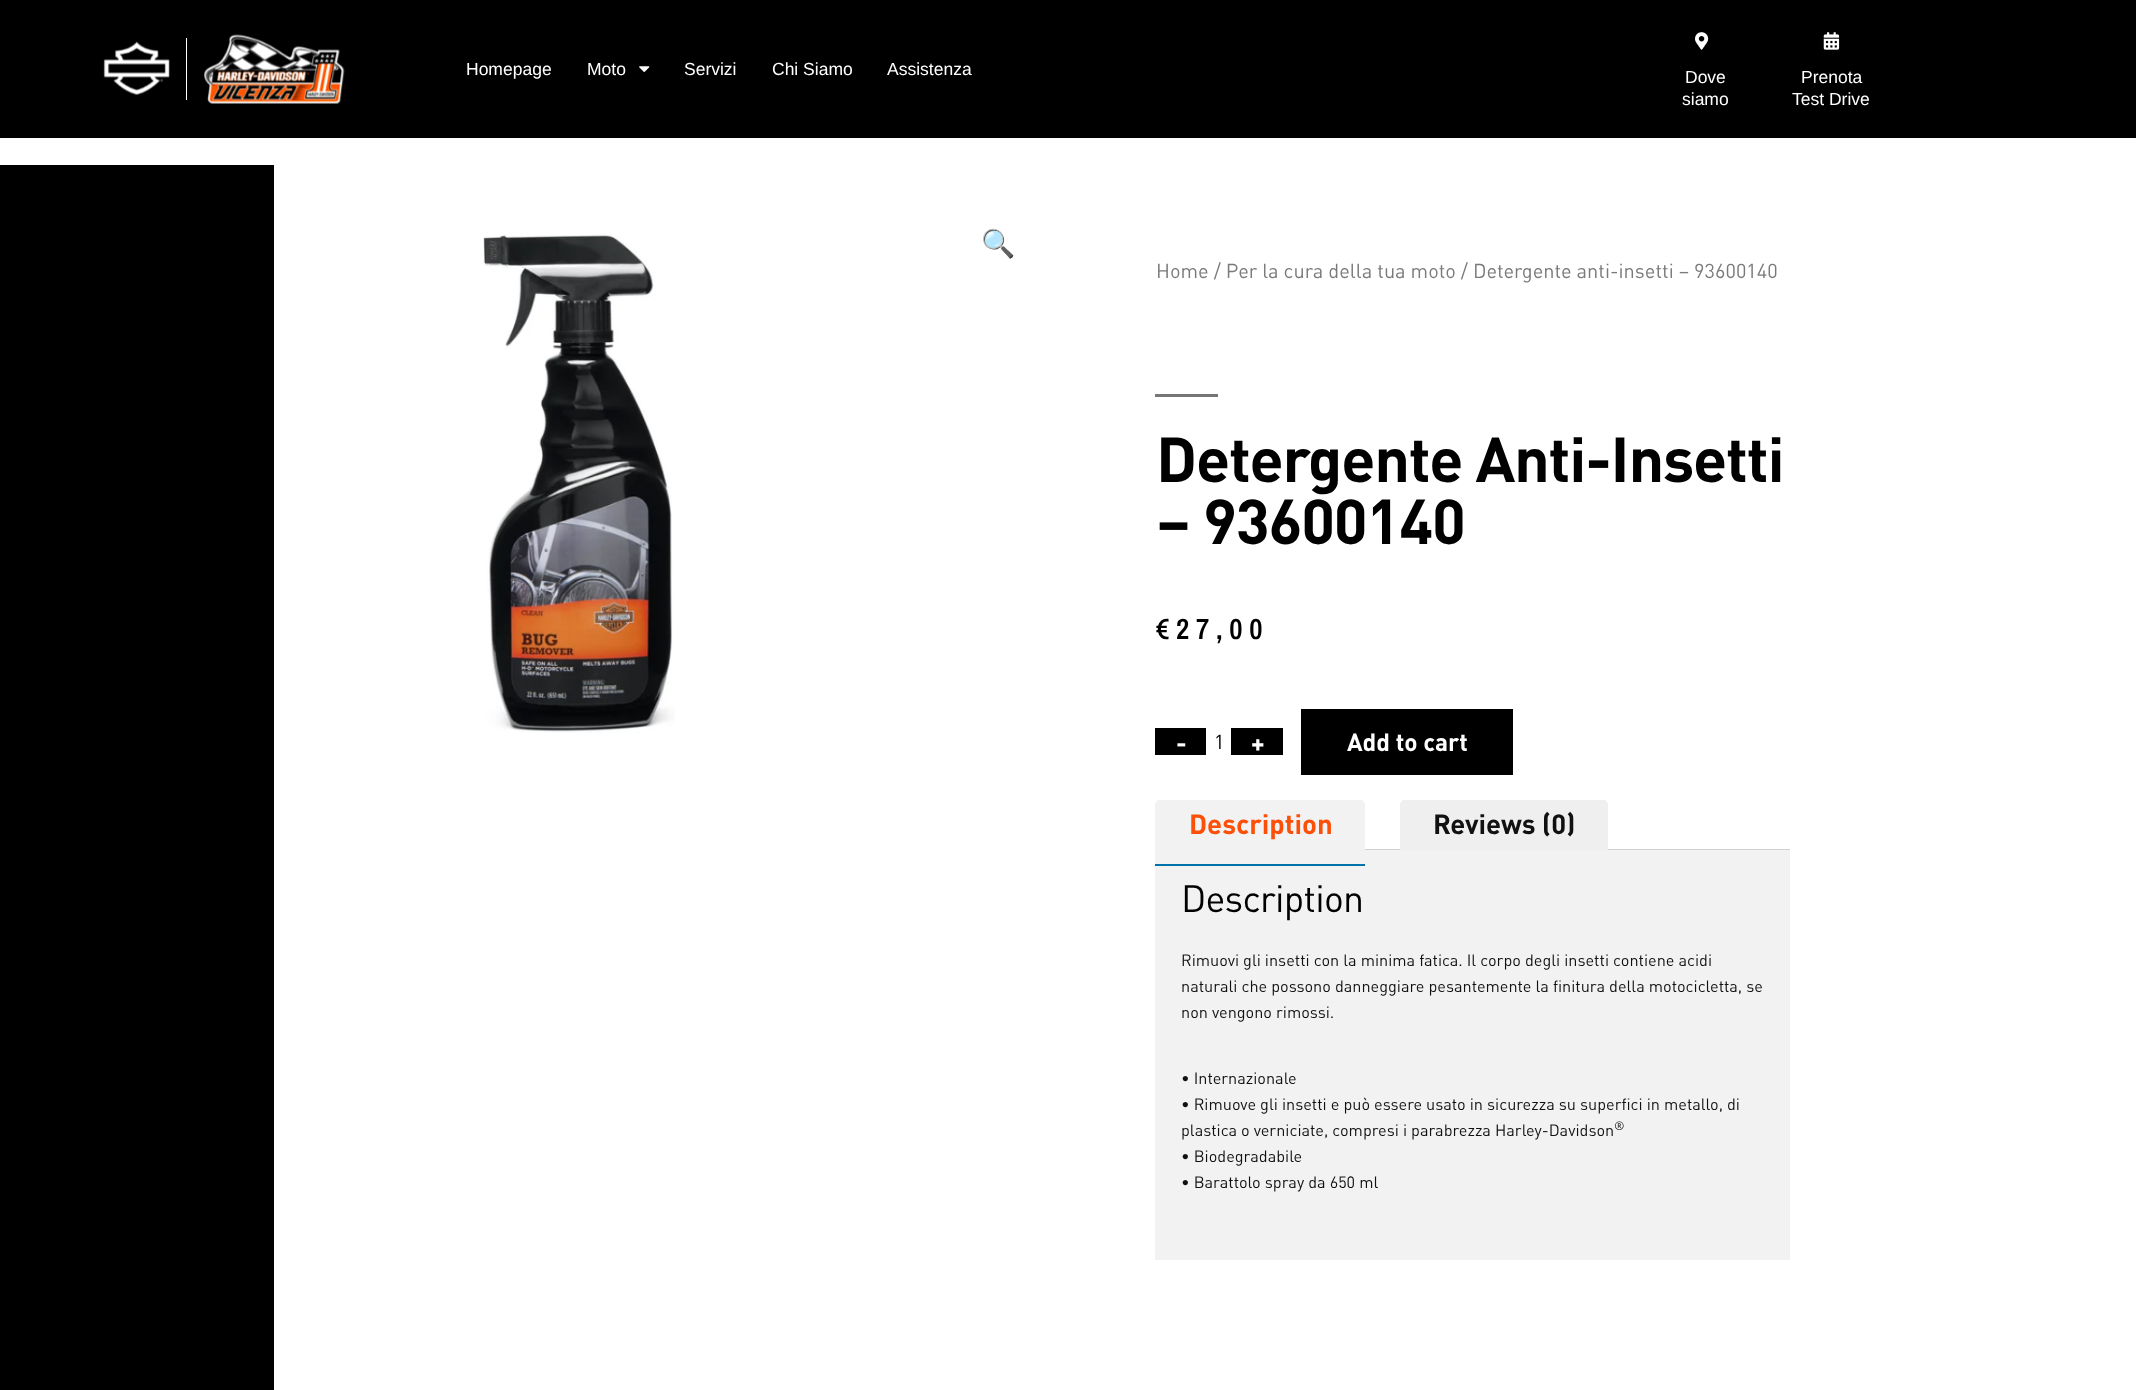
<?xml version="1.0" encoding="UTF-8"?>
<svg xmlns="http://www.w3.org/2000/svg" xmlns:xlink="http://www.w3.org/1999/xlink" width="2136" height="1390">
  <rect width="100%" height="100%" fill="#ffffff" />
  <rect width="2136" height="138" fill="#000000" />
  <image x="103" y="41" width="67" height="54" xlink:href="image1.png" />
  <rect x="186" y="38" width="1" height="62" fill="#ffffff" />
  <image x="204" y="34" width="141" height="70" xlink:href="image2.png" />
  <image x="639" y="66" width="11" height="6" xlink:href="image3.png" />
  <image x="1695" y="32" width="14" height="18" xlink:href="image4.png" />
  <image x="1823" y="32" width="17" height="18" xlink:href="image5.png" />
  <rect y="165" width="274" height="1225" fill="#000000" />
  <image x="483" y="234" width="192" height="499" xlink:href="image6.png" />
  <rect x="1155" y="394" width="63" height="3" fill="#767676" />
  <rect x="1155" y="728" width="51" height="27" fill="#000000" />
  <rect x="1231" y="728" width="52" height="27" fill="#000000" />
  <rect x="1301" y="709" width="212" height="66" fill="#000000" />
  <path d="M 1160 800 h 200 c 3 0 5 2 5 5 v 45 h -210 v -45 c 0 -3 2 -5 5 -5 z" fill="#f2f2f2" />
  <rect x="1155" y="850" width="635" height="410" fill="#f2f2f2" />
  <rect x="1155" y="864" width="210" height="2" fill="#0073aa" />
  <rect x="1365" y="849" width="425" height="1" fill="#d3ced2" />
  <path d="M 1405 800 h 198 c 3 0 5 2 5 5 v 45 h -208 v -45 c 0 -3 2 -5 5 -5 z" fill="#efefef" />
  <text x="466" y="75" style="font-family: Liberation Sans; font-size: 17.5px; fill: #ffffff">Homepage</text>
  <text x="587" y="75" style="font-family: Liberation Sans; font-size: 17.5px; fill: #ffffff">Moto</text>
  <text x="684" y="75" style="font-family: Liberation Sans; font-size: 17.5px; fill: #ffffff">Servizi</text>
  <text x="772" y="75" style="font-family: Liberation Sans; font-size: 17.5px; fill: #ffffff">Chi Siamo</text>
  <text x="887" y="75" style="font-family: Liberation Sans; font-size: 17.5px; fill: #ffffff">Assistenza</text>
  <text x="1685" y="83" style="font-family: Liberation Sans; font-size: 17.5px; fill: #ffffff">Dove</text>
  <text x="1682" y="105" style="font-family: Liberation Sans; font-size: 17.5px; fill: #ffffff">siamo</text>
  <text x="1801" y="83" style="font-family: Liberation Sans; font-size: 17.5px; fill: #ffffff">Prenota</text>
  <text x="1792" y="105" style="font-family: Liberation Sans; font-size: 17.5px; fill: #ffffff">Test Drive</text>
  <text x="981" y="253" style="font-family: Noto Color Emoji; font-size: 27.5px; fill: #0073aa">🔍</text>
  <text x="1156" y="278" style="font-family: DIN; font-size: 20px; fill: #7a7a7a">Home / Per la cura della tua moto / Detergente anti-insetti – 93600140</text>
  <text x="1156" y="482" style="font-family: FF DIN; font-size: 62.5px; font-weight: bold; letter-spacing: -1.25px; fill: #000000">Detergente Anti-Insetti</text>
  <text x="1156" y="544" style="font-family: FF DIN; font-size: 62.5px; font-weight: bold; letter-spacing: -1.25px; fill: #000000">– 93600140</text>
  <text x="1156" y="639" style="font-family: Archivo Narrow; font-size: 29px; font-weight: 600; letter-spacing: 6.75px; fill: #000000">€27,00</text>
  <text x="1176" y="752" style="font-family: FF DIN; font-size: 25px; font-weight: bold; fill: #ffffff">-</text>
  <text x="1214" y="749" style="font-family: DIN; font-size: 20px; fill: #000000">1</text>
  <text x="1251" y="752" style="font-family: FF DIN; font-size: 25px; font-weight: bold; fill: #ffffff">+</text>
  <text x="1347" y="751" style="font-family: FF DIN; font-size: 24.5px; font-weight: bold; fill: #ffffff">Add to cart</text>
  <text x="1189" y="834" style="font-family: FF DIN; font-size: 27.5px; font-weight: bold; fill: #fc4f08">Description</text>
  <text x="1433" y="834" style="font-family: FF DIN; font-size: 27.5px; font-weight: bold; fill: #111111">Reviews (0)</text>
  <text x="1181" y="912" style="font-family: DIN; font-size: 37.5px; letter-spacing: -0.75px; fill: #000000">Description</text>
  <text x="1181" y="966" style="font-family: DIN; font-size: 16.25px; fill: #111111">Rimuovi gli insetti con la minima fatica. Il corpo degli insetti contiene acidi</text>
  <text x="1181" y="992" style="font-family: DIN; font-size: 16.25px; fill: #111111">naturali che possono danneggiare pesantemente la finitura della motocicletta, se</text>
  <text x="1181" y="1018" style="font-family: DIN; font-size: 16.25px; fill: #111111">non vengono rimossi.</text>
  <text x="1181" y="1084" style="font-family: DIN; font-size: 16.25px; fill: #111111">• Internazionale</text>
  <text x="1181" y="1110" style="font-family: DIN; font-size: 16.25px; fill: #111111">• Rimuove gli insetti e può essere usato in sicurezza su superfici in metallo, di</text>
  <text x="1181" y="1136" style="font-family: DIN; font-size: 16.25px; fill: #111111">plastica o verniciate, compresi i parabrezza Harley-Davidson</text>
  <text x="1614" y="1130" style="font-family: DIN; font-size: 12px; fill: #111111">®</text>
  <text x="1181" y="1162" style="font-family: DIN; font-size: 16.25px; fill: #111111">• Biodegradabile</text>
  <text x="1181" y="1188" style="font-family: DIN; font-size: 16.25px; fill: #111111">• Barattolo spray da 650 ml</text>
</svg>
